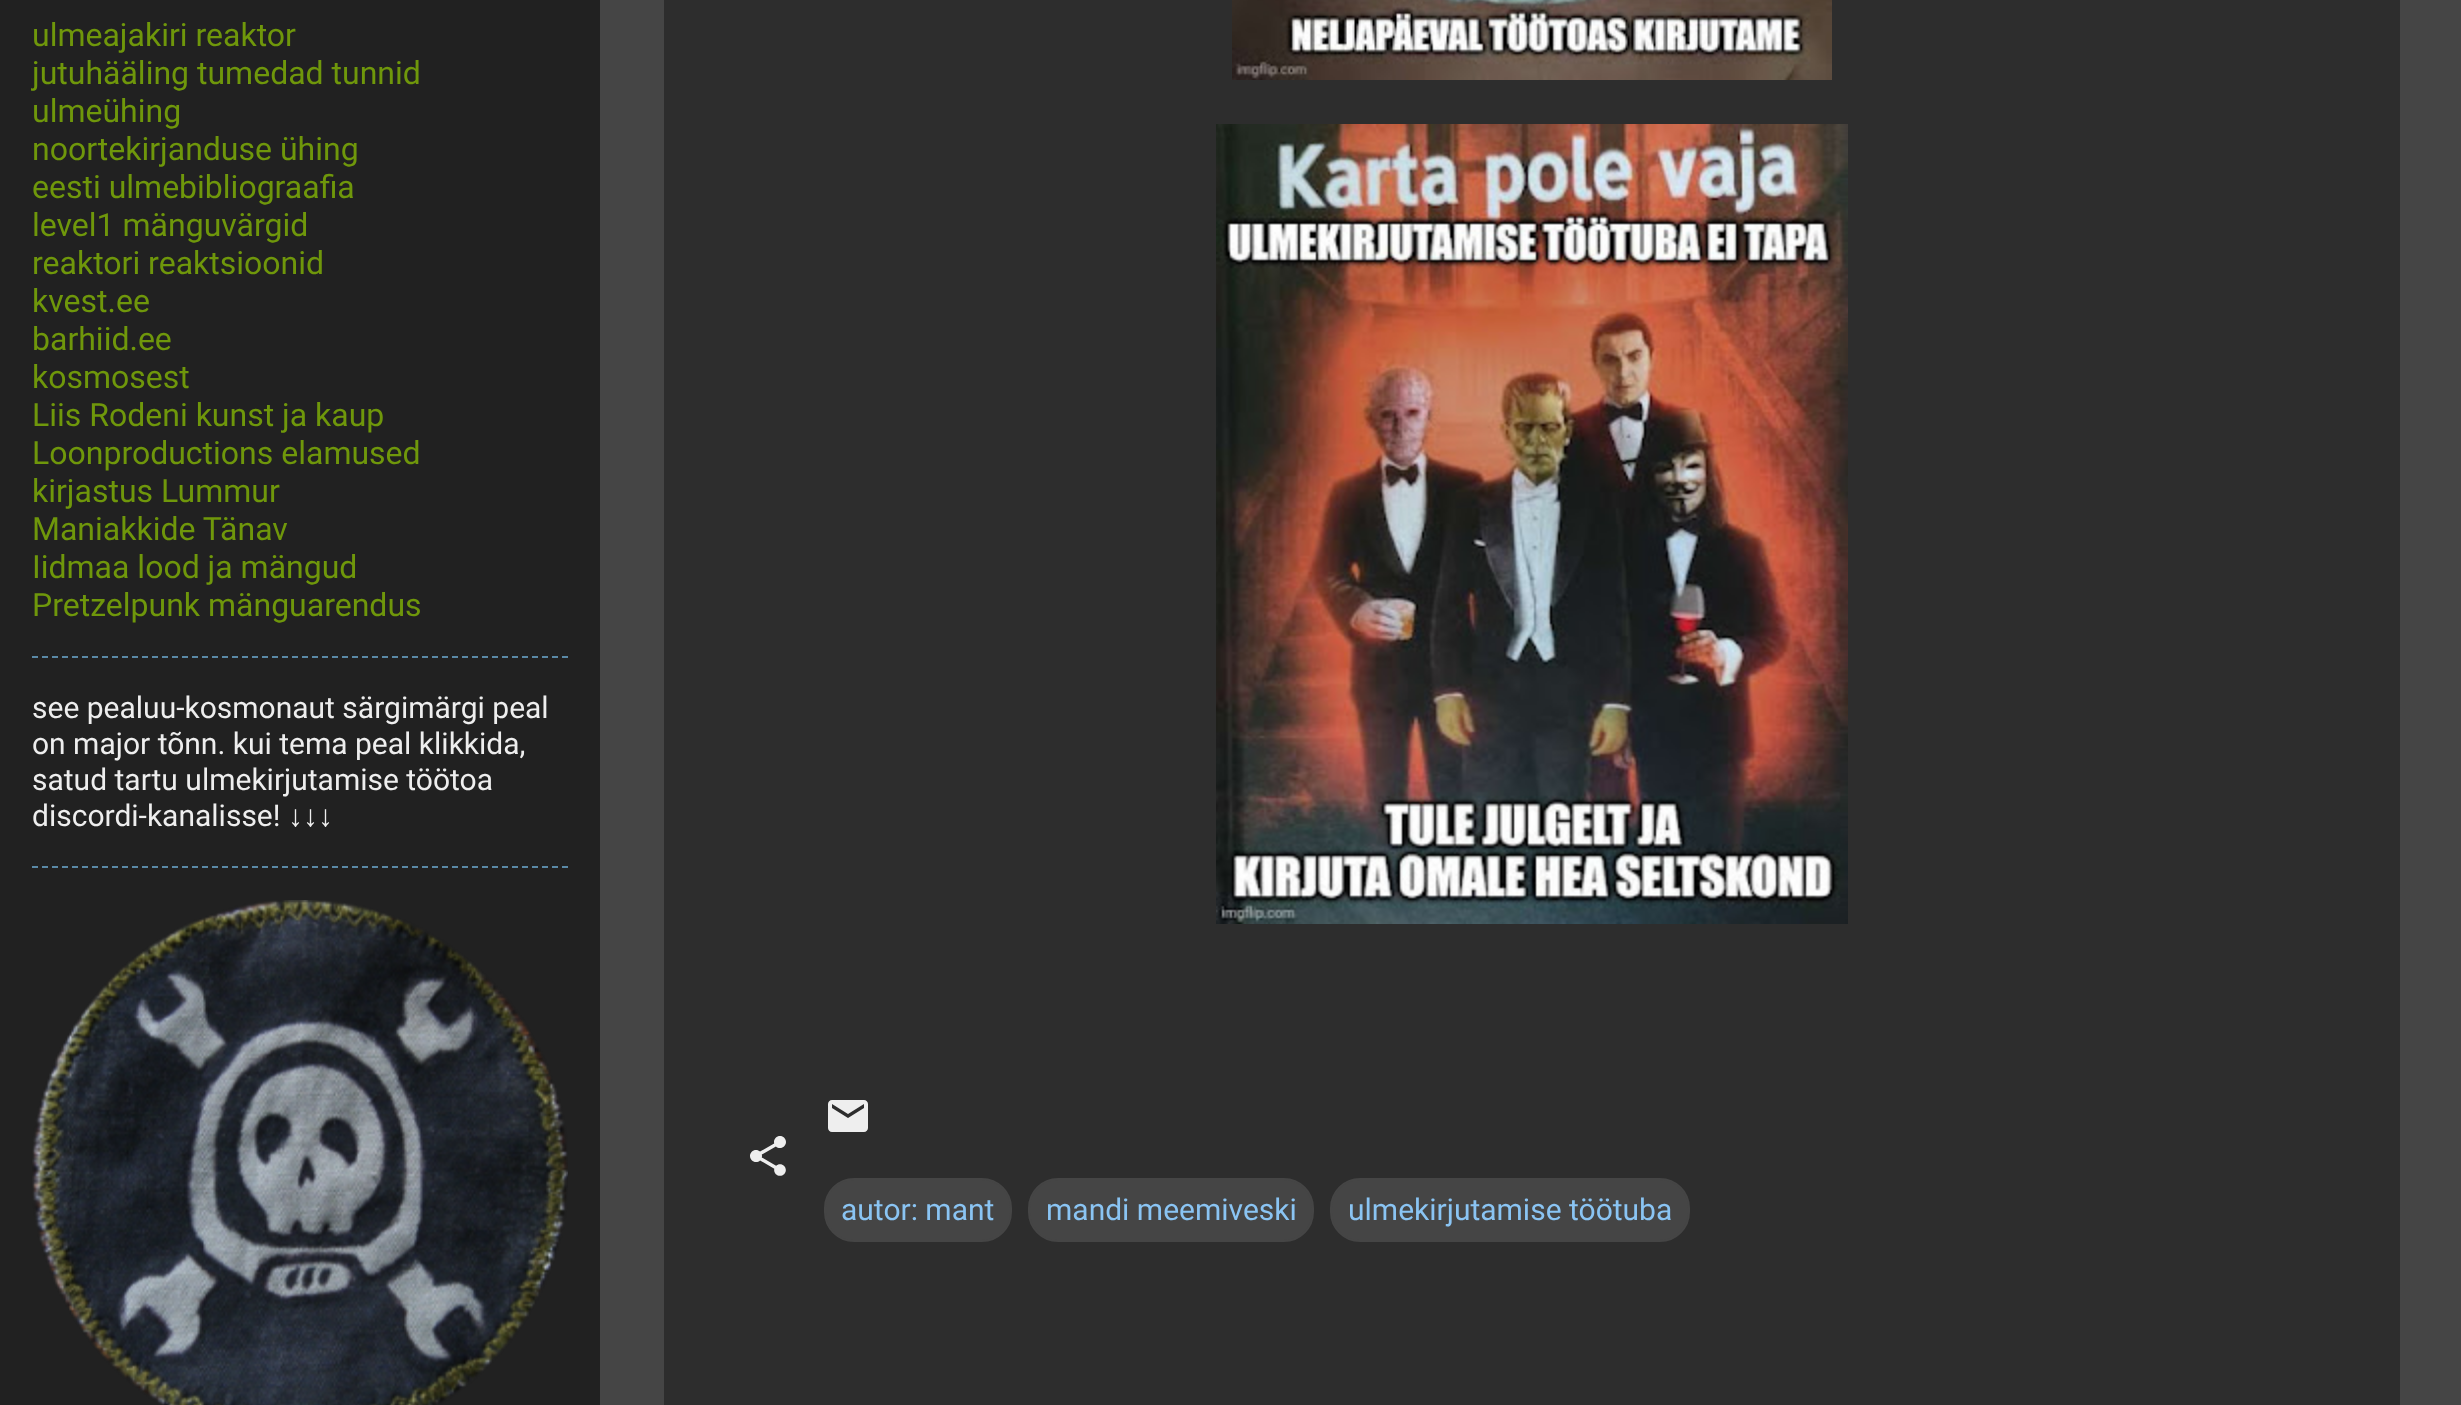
<?xml version="1.0" encoding="UTF-8"?>
<svg xmlns="http://www.w3.org/2000/svg" xmlns:xlink="http://www.w3.org/1999/xlink" width="2461" height="1405">
  <rect width="100%" height="100%" fill="#454545" />
  <rect width="600" height="1405" fill="#212121" />
  <path d="M 32 657 h 536" fill="none" stroke="#5a89a6" stroke-width="2" stroke-dasharray="6 4" />
  <path d="M 32 867 h 536" fill="none" stroke="#5a89a6" stroke-width="2" stroke-dasharray="6 4" />
  <image x="32" y="900" width="536" height="505" xlink:href="image1.png" />
  <rect x="664" width="1736" height="1405" fill="#2d2d2d" />
  <image x="1232" y="0" width="600" height="80" xlink:href="image2.png" />
  <image x="1216" y="124" width="632" height="800" xlink:href="image3.png" />
  <image x="750" y="1136" width="36" height="40" xlink:href="image4.png" />
  <image x="828" y="1100" width="40" height="32" xlink:href="image5.png" />
  <rect x="825" y="1179" width="186" height="62" rx="29" fill="#454545" stroke="#454545" stroke-width="2" />
  <rect x="1029" y="1179" width="284" height="62" rx="29" fill="#454545" stroke="#454545" stroke-width="2" />
  <rect x="1331" y="1179" width="358" height="62" rx="29" fill="#454545" stroke="#454545" stroke-width="2" />
  <text x="32" y="46" style="font-family: Roboto; font-size: 32px; fill: #6f970b">ulmeajakiri reaktor</text>
  <text x="32" y="84" style="font-family: Roboto; font-size: 32px; fill: #6f970b">jutuhääling tumedad tunnid</text>
  <text x="32" y="122" style="font-family: Roboto; font-size: 32px; fill: #6f970b">ulmeühing</text>
  <text x="32" y="160" style="font-family: Roboto; font-size: 32px; fill: #6f970b">noortekirjanduse ühing</text>
  <text x="32" y="198" style="font-family: Roboto; font-size: 32px; fill: #6f970b">eesti ulmebibliograafia</text>
  <text x="32" y="236" style="font-family: Roboto; font-size: 32px; fill: #6f970b">level1 mänguvärgid</text>
  <text x="32" y="274" style="font-family: Roboto; font-size: 32px; fill: #6f970b">reaktori reaktsioonid</text>
  <text x="32" y="312" style="font-family: Roboto; font-size: 32px; fill: #6f970b">kvest.ee</text>
  <text x="32" y="350" style="font-family: Roboto; font-size: 32px; fill: #6f970b">barhiid.ee</text>
  <text x="32" y="388" style="font-family: Roboto; font-size: 32px; fill: #6f970b">kosmosest</text>
  <text x="32" y="426" style="font-family: Roboto; font-size: 32px; fill: #6f970b">Liis Rodeni kunst ja kaup</text>
  <text x="32" y="464" style="font-family: Roboto; font-size: 32px; fill: #6f970b">Loonproductions elamused</text>
  <text x="32" y="502" style="font-family: Roboto; font-size: 32px; fill: #6f970b">kirjastus Lummur</text>
  <text x="32" y="540" style="font-family: Roboto; font-size: 32px; fill: #6f970b">Maniakkide Tänav</text>
  <text x="32" y="578" style="font-family: Roboto; font-size: 32px; fill: #6f970b">Iidmaa lood ja mängud</text>
  <text x="32" y="616" style="font-family: Roboto; font-size: 32px; fill: #6f970b">Pretzelpunk mänguarendus</text>
  <text x="32" y="718" style="font-family: Roboto; font-size: 30px; fill: #eeeeee">see pealuu-kosmonaut särgimärgi peal</text>
  <text x="32" y="754" style="font-family: Roboto; font-size: 30px; fill: #eeeeee">on major tõnn. kui tema peal klikkida,</text>
  <text x="32" y="790" style="font-family: Roboto; font-size: 30px; fill: #eeeeee">satud tartu ulmekirjutamise töötoa</text>
  <text x="32" y="826" style="font-family: Roboto; font-size: 30px; fill: #eeeeee">discordi-kanalisse!</text>
  <text x="288" y="826" style="font-family: Liberation Sans; font-size: 30px; fill: #eeeeee">↓↓↓</text>
  <text x="841" y="1220" style="font-family: Roboto; font-size: 30px; fill: #8ac4f3">autor: mant</text>
  <text x="1046" y="1220" style="font-family: Roboto; font-size: 30px; fill: #8ac4f3">mandi meemiveski</text>
  <text x="1348" y="1220" style="font-family: Roboto; font-size: 30px; fill: #8ac4f3">ulmekirjutamise töötuba</text>
</svg>
